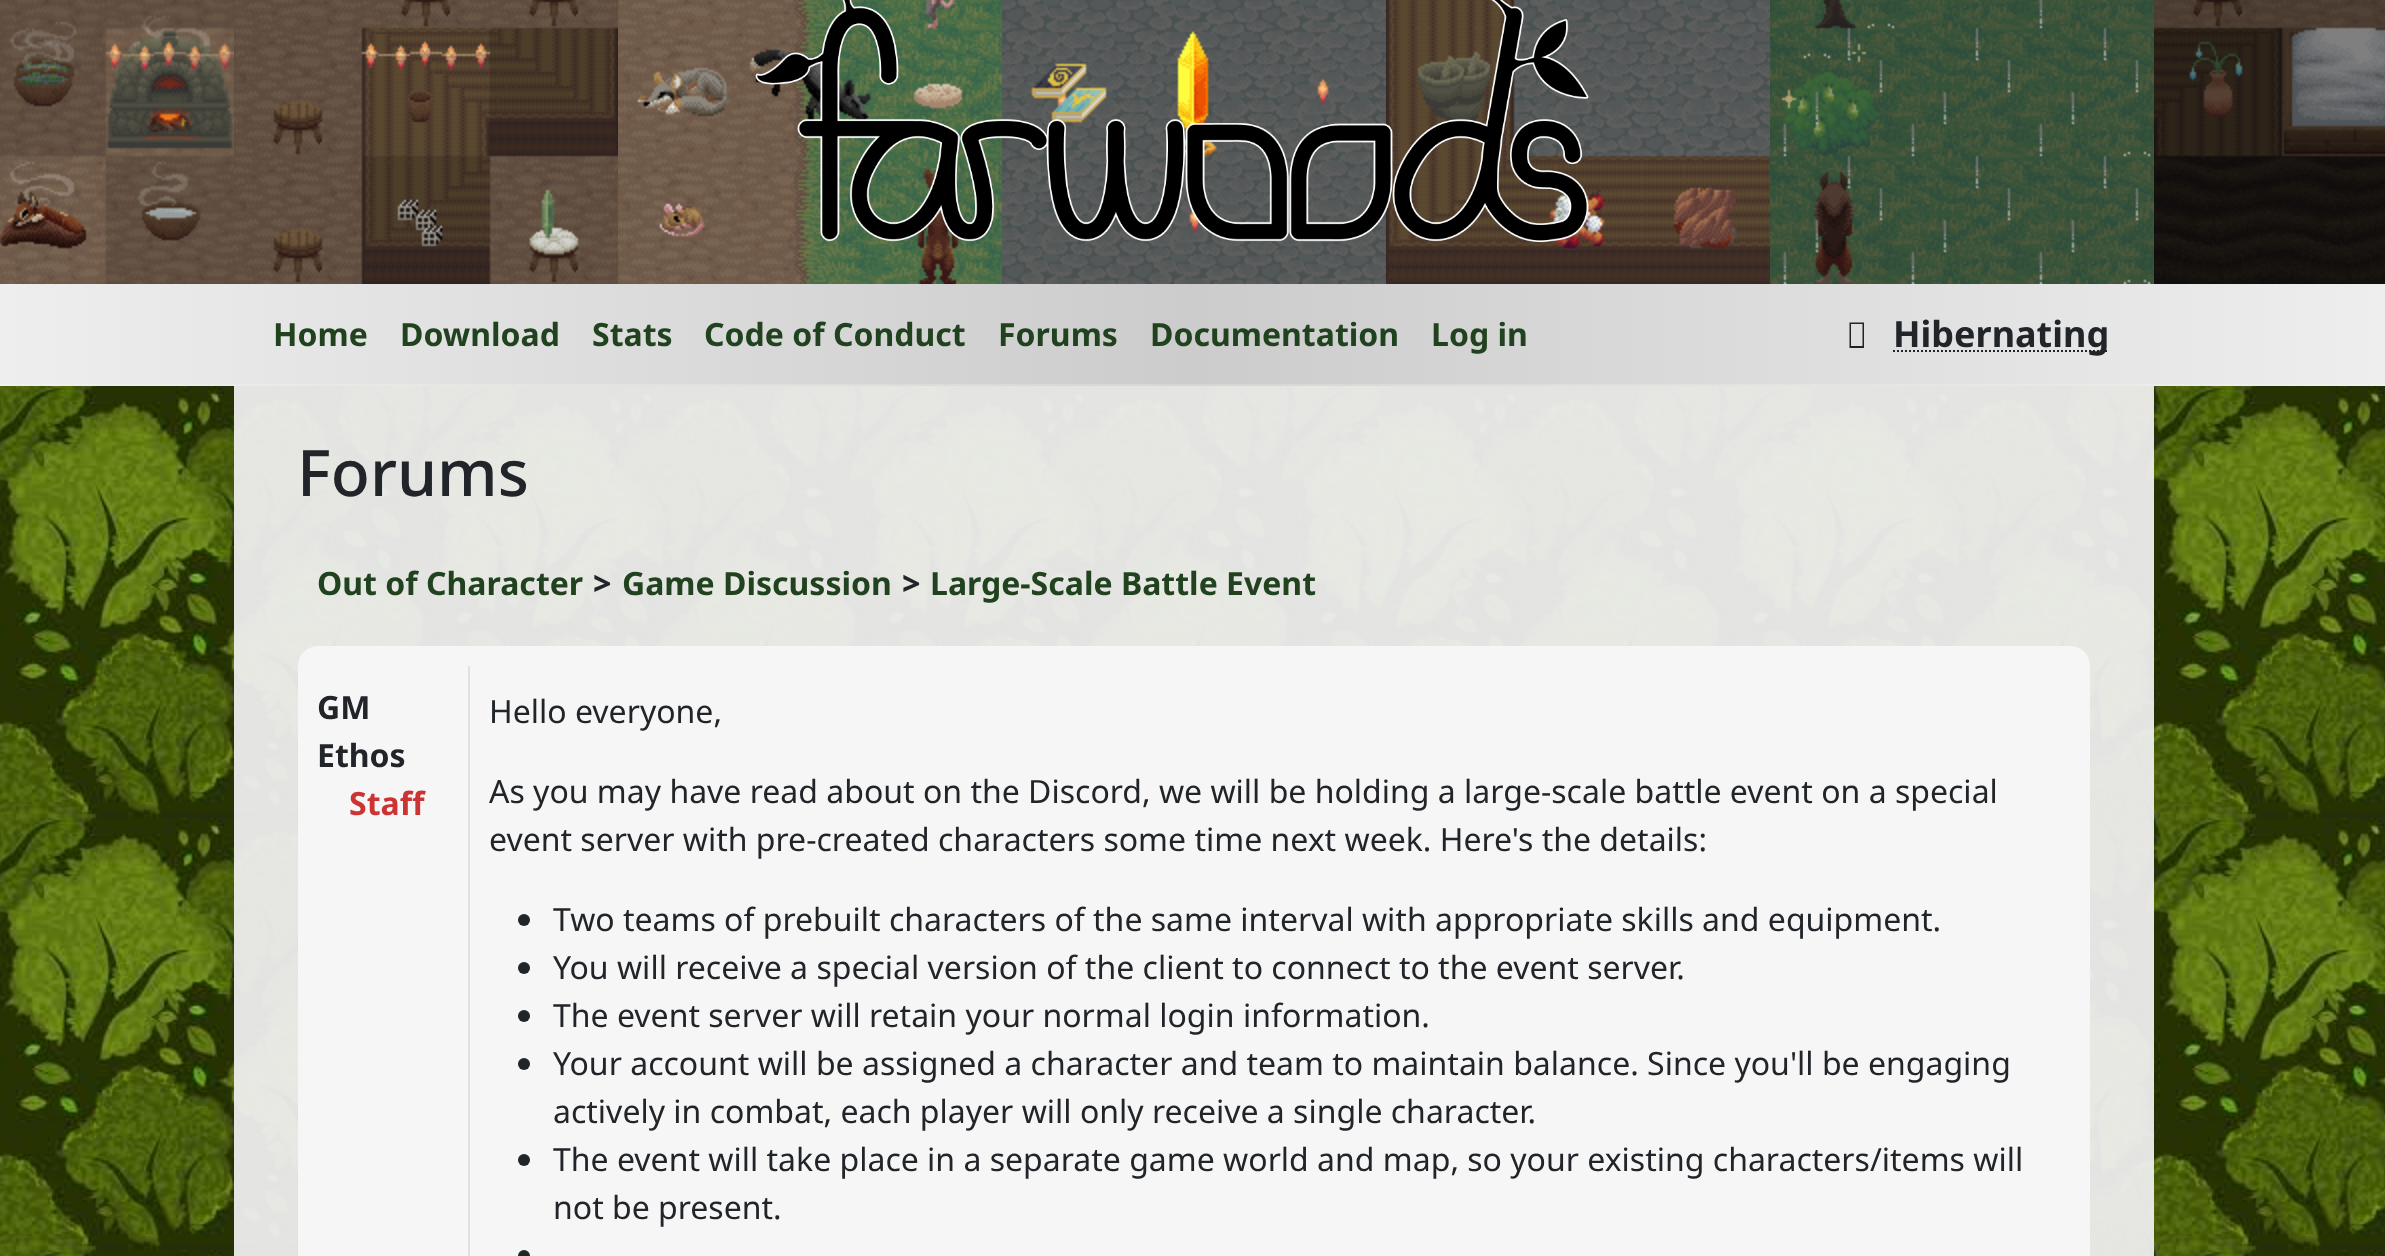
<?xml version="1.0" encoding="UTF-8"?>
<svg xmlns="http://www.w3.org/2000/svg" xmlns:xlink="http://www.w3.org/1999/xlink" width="2385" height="1256">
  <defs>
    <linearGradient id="g1" gradientUnits="userSpaceOnUse" x1="0" y1="334" x2="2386" y2="334"><stop offset="0" stop-color="#eeeeee" /><stop offset="0.5" stop-color="#cccccc" /><stop offset="1" stop-color="#eeeeee" /></linearGradient>
    <linearGradient id="g2" gradientUnits="userSpaceOnUse" x1="0" y1="334" x2="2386" y2="334"><stop offset="0" stop-color="#f1f1f1" /><stop offset="0.5" stop-color="#d6d6d6" /><stop offset="1" stop-color="#f1f1f1" /></linearGradient>
  </defs>
  <rect width="100%" height="100%" fill="#ffffff" />
  <image x="0" y="0" width="234" height="284" xlink:href="image1.png" />
  <image x="234" y="0" width="384" height="284" xlink:href="image2.png" />
  <image x="618" y="0" width="384" height="284" xlink:href="image3.png" />
  <image x="1002" y="0" width="384" height="284" xlink:href="image5.png" />
  <image x="1386" y="0" width="384" height="284" xlink:href="image6.png" />
  <image x="755" y="0" width="834" height="242" xlink:href="image4.png" />
  <image x="1770" y="0" width="384" height="284" xlink:href="image7.png" />
  <image x="2154" y="0" width="231" height="284" xlink:href="image8.png" />
  <rect y="284" width="2385" height="100" fill="url(#g1)" />
  <rect y="384" width="2385" height="2" fill="url(#g2)" />
  <path d="M 1849.5 348 v -25.5 h 14.5 v 25.5 z m 1.5 -2 h 11.5 v -22 h -11.5 z" fill="#212529" />
  <path d="M 1893 351 h 216" fill="none" stroke="#212529" stroke-width="2" stroke-dasharray="2 2" />
  <image x="0" y="386" width="2385" height="870" xlink:href="image9.png" />
  <rect x="234" y="386" width="1920" height="870" fill="#eeeeee" fill-opacity="0.95" />
  <rect x="298" y="646" width="1792" height="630" rx="20" fill="#f6f6f6" />
  <rect x="468" y="666" width="2" height="590" fill="#e0e0e0" />
  <circle cx="524" cy="920" r="6" fill="#212529" />
  <circle cx="524" cy="968" r="6" fill="#212529" />
  <circle cx="524" cy="1016" r="6" fill="#212529" />
  <circle cx="524" cy="1064" r="6" fill="#212529" />
  <circle cx="524" cy="1160" r="6" fill="#212529" />
  <circle cx="524" cy="1256" r="6" fill="#212529" />
  <text x="273" y="346" style="font-family: Noto Sans; font-size: 32px; font-weight: bold; fill: #21421e">Home</text>
  <text x="400" y="346" style="font-family: Noto Sans; font-size: 32px; font-weight: bold; fill: #21421e">Download</text>
  <text x="592" y="346" style="font-family: Noto Sans; font-size: 32px; font-weight: bold; fill: #21421e">Stats</text>
  <text x="704" y="346" style="font-family: Noto Sans; font-size: 32px; font-weight: bold; fill: #21421e">Code of Conduct</text>
  <text x="998" y="346" style="font-family: Noto Sans; font-size: 32px; font-weight: bold; fill: #21421e">Forums</text>
  <text x="1150" y="346" style="font-family: Noto Sans; font-size: 32px; font-weight: bold; fill: #21421e">Documentation</text>
  <text x="1431" y="346" style="font-family: Noto Sans; font-size: 32px; font-weight: bold; fill: #21421e">Log in</text>
  <text x="1893" y="347" style="font-family: Noto Sans; font-size: 36px; font-weight: bold; fill: #212529">Hibernating</text>
  <text x="297" y="496" style="font-family: Noto Sans; font-size: 64px; font-weight: 500; fill: #212529">Forums</text>
  <text x="317" y="595" style="font-family: Noto Sans; font-size: 32px; font-weight: bold; fill: #21421e">Out of Character</text>
  <text x="593" y="595" style="font-family: Noto Sans; font-size: 32px; font-weight: 800; fill: #212529">&gt;</text>
  <text x="622" y="595" style="font-family: Noto Sans; font-size: 32px; font-weight: bold; fill: #21421e">Game Discussion</text>
  <text x="902" y="595" style="font-family: Noto Sans; font-size: 32px; font-weight: 800; fill: #212529">&gt;</text>
  <text x="930" y="595" style="font-family: Noto Sans; font-size: 32px; font-weight: bold; fill: #21421e">Large-Scale Battle Event</text>
  <text x="317" y="719" style="font-family: Noto Sans; font-size: 32px; font-weight: bold; fill: #212529">GM</text>
  <text x="317" y="767" style="font-family: Noto Sans; font-size: 32px; font-weight: bold; fill: #212529">Ethos</text>
  <text x="349" y="815" style="font-family: Noto Sans; font-size: 32px; font-weight: bold; fill: #cc3333">Staff</text>
  <text x="489" y="723" style="font-family: Noto Sans; font-size: 32px; fill: #212529">Hello everyone,</text>
  <text x="489" y="803" style="font-family: Noto Sans; font-size: 32px; fill: #212529">As you may have read about on the Discord, we will be holding a large-scale battle event on a special</text>
  <text x="489" y="851" style="font-family: Noto Sans; font-size: 32px; fill: #212529">event server with pre-created characters some time next week. Here's the details:</text>
  <text x="553" y="931" style="font-family: Noto Sans; font-size: 32px; fill: #212529">Two teams of prebuilt characters of the same interval with appropriate skills and equipment.</text>
  <text x="553" y="979" style="font-family: Noto Sans; font-size: 32px; fill: #212529">You will receive a special version of the client to connect to the event server.</text>
  <text x="553" y="1027" style="font-family: Noto Sans; font-size: 32px; fill: #212529">The event server will retain your normal login information.</text>
  <text x="553" y="1075" style="font-family: Noto Sans; font-size: 32px; fill: #212529">Your account will be assigned a character and team to maintain balance. Since you'll be engaging</text>
  <text x="553" y="1123" style="font-family: Noto Sans; font-size: 32px; fill: #212529">actively in combat, each player will only receive a single character.</text>
  <text x="553" y="1171" style="font-family: Noto Sans; font-size: 32px; fill: #212529">The event will take place in a separate game world and map, so your existing characters/items will</text>
  <text x="553" y="1219" style="font-family: Noto Sans; font-size: 32px; fill: #212529">not be present.</text>
</svg>
